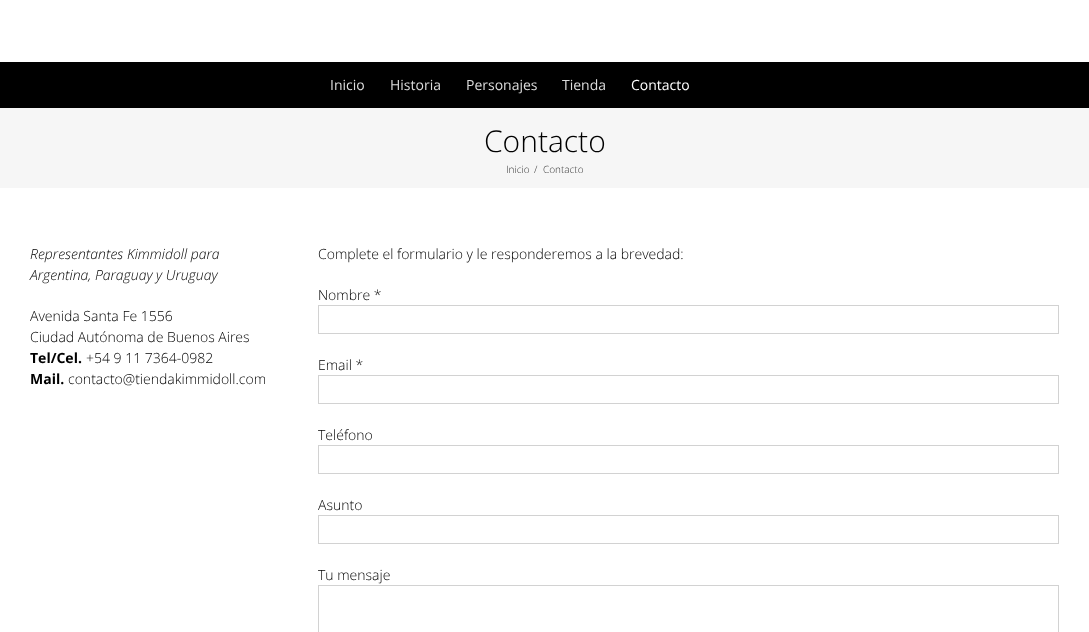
<?xml version="1.0" encoding="UTF-8"?>
<svg xmlns="http://www.w3.org/2000/svg" xmlns:xlink="http://www.w3.org/1999/xlink" width="1089" height="632">
  <rect width="100%" height="100%" fill="#ffffff" />
  <rect y="62" width="1089" height="46" fill="#000000" />
  <rect y="108" width="1089" height="80" fill="#f6f6f6" />
  <rect x="318.5" y="305.5" width="740" height="28" fill="none" stroke="#d2d2d2" />
  <rect x="318.5" y="375.5" width="740" height="28" fill="none" stroke="#d2d2d2" />
  <rect x="318.5" y="445.5" width="740" height="28" fill="none" stroke="#d2d2d2" />
  <rect x="318.5" y="515.5" width="740" height="28" fill="none" stroke="#d2d2d2" />
  <rect x="318.5" y="585.5" width="740" height="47" fill="none" stroke="#d2d2d2" />
  <text x="330" y="90" style="font-family: Open Sans; font-size: 14px; fill: #dddddd">Inicio</text>
  <text x="390" y="90" style="font-family: Open Sans; font-size: 14px; fill: #dddddd">Historia</text>
  <text x="466" y="90" style="font-family: Open Sans; font-size: 14px; fill: #dddddd">Personajes</text>
  <text x="562" y="90" style="font-family: Open Sans; font-size: 14px; fill: #dddddd">Tienda</text>
  <text x="631" y="90" style="font-family: Open Sans; font-size: 14px; fill: #ffffff">Contacto</text>
  <text x="484" y="152" style="font-family: Open Sans; font-size: 30px; font-weight: 300; fill: #000000">Contacto</text>
  <text x="506" y="173" style="font-family: Open Sans; font-size: 10px; font-weight: 300; fill: #333333">Inicio</text>
  <text x="534" y="173" style="font-family: Open Sans; font-size: 10px; font-weight: 300; fill: #333333">/</text>
  <text x="543" y="173" style="font-family: Open Sans; font-size: 10px; font-weight: 300; fill: #333333">Contacto</text>
  <text x="30" y="259" style="font-family: Open Sans; font-size: 14px; font-weight: 300; font-style: italic; fill: #000000">Representantes Kimmidoll para</text>
  <text x="30" y="280" style="font-family: Open Sans; font-size: 14px; font-weight: 300; font-style: italic; fill: #000000">Argentina, Paraguay y Uruguay</text>
  <text x="30" y="321" style="font-family: Open Sans; font-size: 14px; font-weight: 300; fill: #000000">Avenida Santa Fe 1556</text>
  <text x="30" y="342" style="font-family: Open Sans; font-size: 14px; font-weight: 300; fill: #000000">Ciudad Autónoma de Buenos Aires</text>
  <text x="30" y="363" style="font-family: Open Sans; font-size: 14px; font-weight: bold; fill: #000000">Tel/Cel.</text>
  <text x="86" y="363" style="font-family: Open Sans; font-size: 14px; font-weight: 300; fill: #000000">+54 9 11 7364-0982</text>
  <text x="30" y="384" style="font-family: Open Sans; font-size: 14px; font-weight: bold; fill: #000000">Mail.</text>
  <text x="68" y="384" style="font-family: Open Sans; font-size: 14px; font-weight: 300; fill: #000000">contacto@tiendakimmidoll.com</text>
  <text x="318" y="259" style="font-family: Open Sans; font-size: 14px; font-weight: 300; fill: #000000">Complete el formulario y le responderemos a la brevedad:</text>
  <text x="318" y="300" style="font-family: Open Sans; font-size: 14px; font-weight: 300; fill: #000000">Nombre *</text>
  <text x="318" y="370" style="font-family: Open Sans; font-size: 14px; font-weight: 300; fill: #000000">Email *</text>
  <text x="318" y="440" style="font-family: Open Sans; font-size: 14px; font-weight: 300; fill: #000000">Teléfono</text>
  <text x="318" y="510" style="font-family: Open Sans; font-size: 14px; font-weight: 300; fill: #000000">Asunto</text>
  <text x="318" y="580" style="font-family: Open Sans; font-size: 14px; font-weight: 300; fill: #000000">Tu mensaje</text>
</svg>
